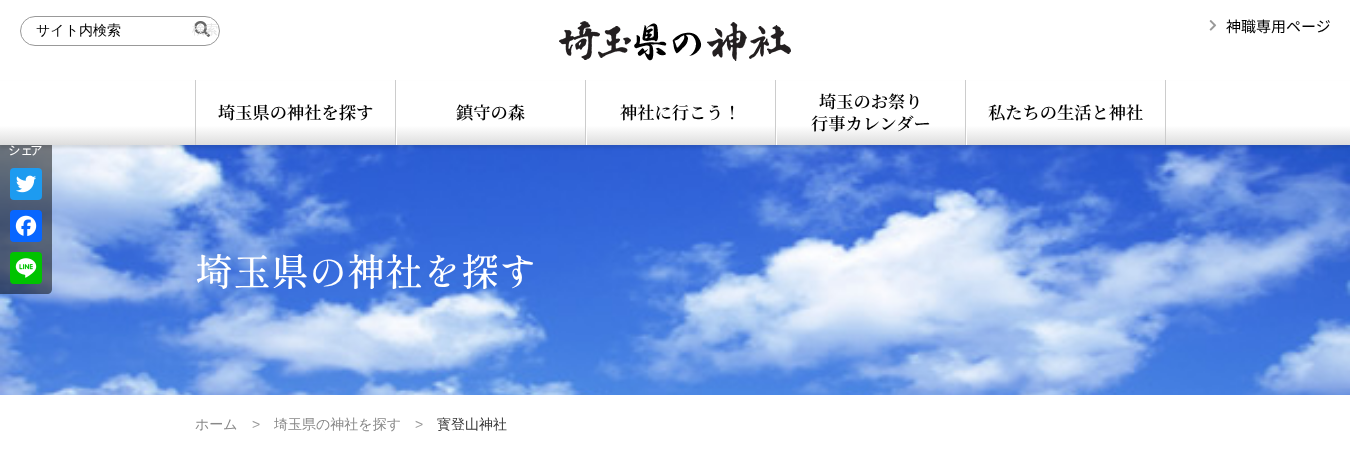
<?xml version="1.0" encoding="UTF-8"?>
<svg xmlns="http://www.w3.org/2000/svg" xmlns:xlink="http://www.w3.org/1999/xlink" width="1350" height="461">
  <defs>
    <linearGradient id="g1" gradientUnits="userSpaceOnUse" x1="675" y1="80" x2="675" y2="145"><stop offset="0.7" stop-color="#ffffff" /><stop offset="1" stop-color="#dddddd" /></linearGradient>
  </defs>
  <rect width="100%" height="100%" fill="#ffffff" />
  <rect x="20.5" y="16.5" width="199" height="29" rx="14.5" fill="none" stroke="#999999" />
  <image x="194" y="21" width="16" height="16" xlink:href="image1.png" />
  <image x="559" y="21" width="232" height="40" xlink:href="image2.png" />
  <image x="1209" y="20" width="8" height="11" xlink:href="image3.png" />
  <image x="0" y="145" width="1350" height="250" xlink:href="image7.png" />
  <path d="M 0 131 h 47 c 3 0 5 2 5 5 v 153 c 0 3 -2 5 -5 5 h -47 z" fill="#000000" fill-opacity="0.5" />
  <rect y="83" width="1350" height="65" fill="#000000" fill-opacity="0.1" filter="blur(1.5px)" />
  <rect y="81" width="1350" height="64" fill="url(#g1)" />
  <rect x="395" y="80" width="1" height="65" fill="#cccccc" />
  <rect x="195" y="80" width="1" height="65" fill="#cccccc" />
  <rect x="585" y="80" width="1" height="65" fill="#cccccc" />
  <rect x="396" y="127" width="1" height="18" fill="#ffffff" />
  <rect x="775" y="80" width="1" height="65" fill="#cccccc" />
  <rect x="586" y="127" width="1" height="18" fill="#ffffff" />
  <rect x="965" y="80" width="1" height="65" fill="#cccccc" />
  <rect x="776" y="127" width="1" height="18" fill="#ffffff" />
  <rect x="1165" y="80" width="1" height="65" fill="#cccccc" />
  <rect x="966" y="127" width="1" height="18" fill="#ffffff" />
  <rect x="10" y="168" width="32" height="32" rx="4" fill="#1d9bf0" />
  <image x="16" y="175" width="20" height="18" xlink:href="image4.png" />
  <rect x="10" y="210" width="32" height="32" rx="4" fill="#0866ff" />
  <image x="15" y="215" width="22" height="21" xlink:href="image5.png" />
  <rect x="10" y="252" width="32" height="32" rx="4" fill="#00c300" />
  <image x="15" y="258" width="22" height="20" xlink:href="image6.png" />
  <text x="36" y="35" style="font-family: WenQuanYi Zen Hei; font-size: 14px; font-weight: 500; fill: #000000">サイト内検索</text>
  <text x="192" y="34" style="font-family: WenQuanYi Zen Hei; font-size: 13px; font-weight: 500; fill: #e3e3e3">検索</text>
  <text x="1226" y="32" style="font-family: Noto Sans JP; font-size: 15px; fill: #000000">神職専用ページ</text>
  <text x="218" y="119" style="font-family: Noto Serif JP; font-size: 17.25px; font-weight: 600; fill: #000000">埼玉県の神社を探す</text>
  <text x="456" y="119" style="font-family: Noto Serif JP; font-size: 17.25px; font-weight: 600; fill: #000000">鎮守の森</text>
  <text x="620" y="119" style="font-family: Noto Serif JP; font-size: 17.25px; font-weight: 600; fill: #000000">神社に行こう！</text>
  <text x="819" y="108" style="font-family: Noto Serif JP; font-size: 17.25px; font-weight: 600; fill: #000000">埼玉のお祭り</text>
  <text x="811" y="130" style="font-family: Noto Serif JP; font-size: 17.25px; font-weight: 600; fill: #000000">行事カレンダー</text>
  <text x="988" y="119" style="font-family: Noto Serif JP; font-size: 17.25px; font-weight: 600; fill: #000000">私たちの生活と神社</text>
  <text x="8" y="155" style="font-family: Noto Sans JP; font-size: 12.5px; fill: #ffffff">シェ</text>
  <text x="30" y="155" style="font-family: Noto Sans JP; font-size: 12.5px; fill: #ffffff">ア</text>
  <text x="195" y="286" style="font-family: 'Shippori Mincho B1'; font-size: 38px; font-weight: 500; fill: #ffffff">埼玉県の神社を探す</text>
  <text x="195" y="429" style="font-family: WenQuanYi Zen Hei; font-size: 14px; font-weight: 500; fill: #888888">ホーム</text>
  <text x="252" y="429" style="font-family: Liberation Sans; font-size: 14px; fill: #999999">&gt;</text>
  <text x="274" y="429" style="font-family: WenQuanYi Zen Hei; font-size: 14px; font-weight: 500; fill: #888888">埼玉県の神社を探す</text>
  <text x="415" y="429" style="font-family: Liberation Sans; font-size: 14px; fill: #999999">&gt;</text>
  <text x="437" y="429" style="font-family: WenQuanYi Zen Hei; font-size: 14px; font-weight: 500; fill: #333333">寳登山神社</text>
</svg>
